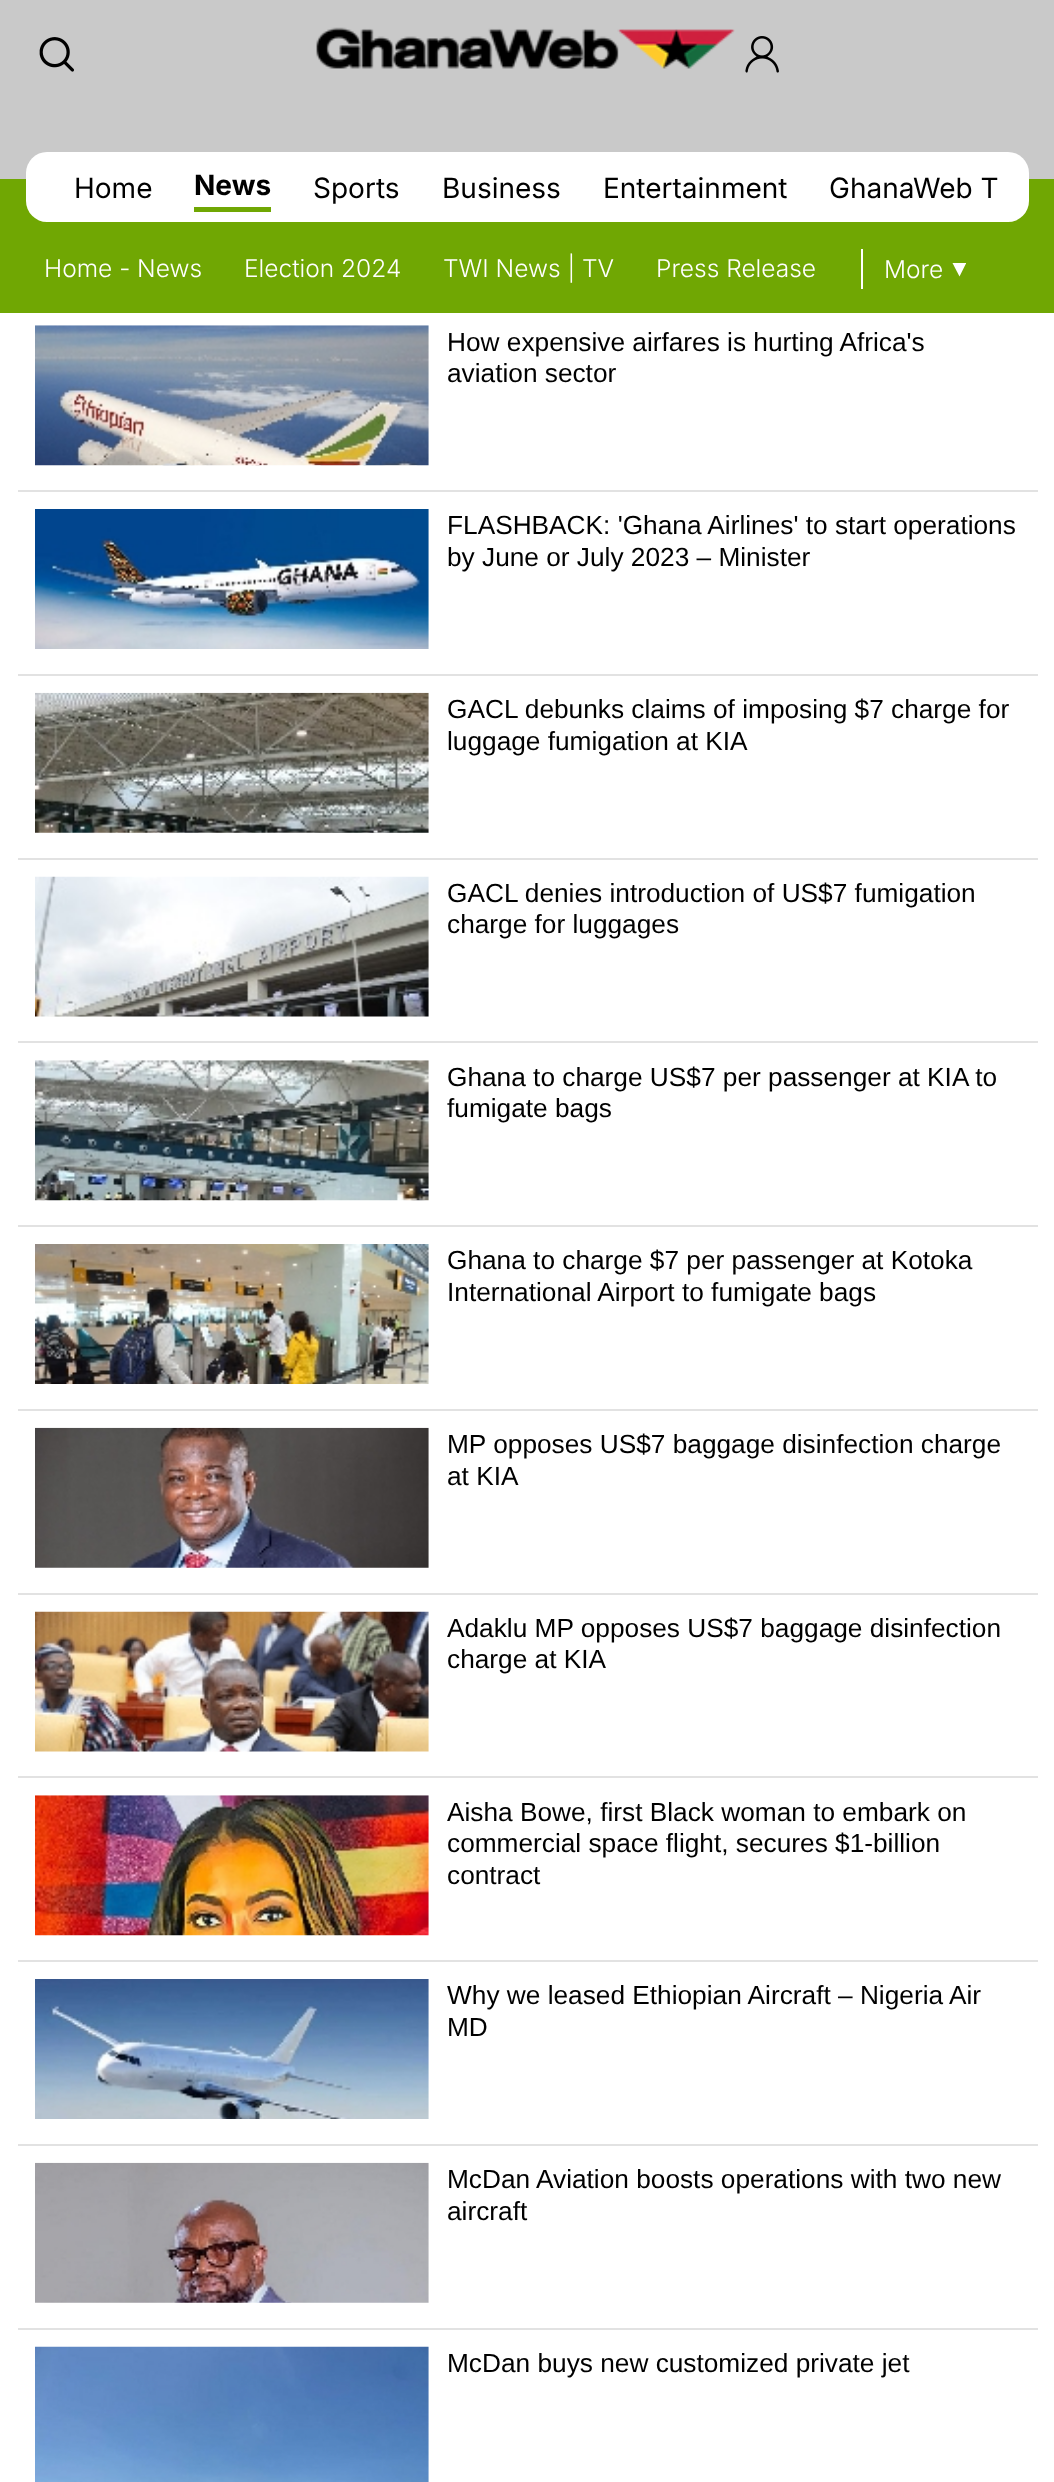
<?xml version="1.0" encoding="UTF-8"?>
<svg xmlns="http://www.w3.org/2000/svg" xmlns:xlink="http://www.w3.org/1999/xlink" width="1054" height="2482">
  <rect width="100%" height="100%" fill="#ffffff" />
  <rect width="1054" height="179" fill="#c9c9c9" />
  <image x="39" y="37" width="35" height="35" xlink:href="image1.png" />
  <image x="316" y="27" width="419" height="42" xlink:href="image2.png" />
  <image x="745" y="36" width="34" height="37" xlink:href="image3.png" />
  <rect y="179" width="1054" height="134" fill="#70a703" />
  <rect x="26" y="152" width="1003" height="70" rx="21" fill="#ffffff" />
  <rect x="194" y="207" width="77" height="5" fill="#70a703" />
  <rect x="861" y="249" width="2" height="40" fill="#ffffff" />
  <path d="M 966 263.5 v -0.5 h -13.5 l 7 13.5 z" fill="#ffffff" />
  <image x="35" y="325" width="394" height="141" xlink:href="image4.png" />
  <rect x="18" y="490" width="1020" height="2" fill="#e2e2e2" />
  <image x="35" y="509" width="394" height="140" xlink:href="image5.png" />
  <rect x="18" y="674" width="1020" height="2" fill="#e2e2e2" />
  <image x="35" y="692" width="394" height="141" xlink:href="image6.png" />
  <rect x="18" y="858" width="1020" height="2" fill="#e2e2e2" />
  <image x="35" y="876" width="394" height="141" xlink:href="image7.png" />
  <rect x="18" y="1041" width="1020" height="2" fill="#e2e2e2" />
  <image x="35" y="1060" width="394" height="141" xlink:href="image8.png" />
  <rect x="18" y="1225" width="1020" height="2" fill="#e2e2e2" />
  <image x="35" y="1244" width="394" height="140" xlink:href="image9.png" />
  <rect x="18" y="1409" width="1020" height="2" fill="#e2e2e2" />
  <image x="35" y="1427" width="394" height="141" xlink:href="image10.png" />
  <rect x="18" y="1593" width="1020" height="2" fill="#e2e2e2" />
  <image x="35" y="1611" width="394" height="141" xlink:href="image11.png" />
  <rect x="18" y="1776" width="1020" height="2" fill="#e2e2e2" />
  <image x="35" y="1795" width="394" height="141" xlink:href="image12.png" />
  <rect x="18" y="1960" width="1020" height="2" fill="#e2e2e2" />
  <image x="35" y="1979" width="394" height="140" xlink:href="image13.png" />
  <rect x="18" y="2144" width="1020" height="2" fill="#e2e2e2" />
  <image x="35" y="2162" width="394" height="141" xlink:href="image14.png" />
  <rect x="18" y="2328" width="1020" height="2" fill="#e2e2e2" />
  <image x="35" y="2346" width="394" height="136" xlink:href="image15.png" />
  <text x="74" y="198" style="font-family: Inter; font-size: 28px; fill: #000000">Home</text>
  <text x="194" y="195" style="font-family: Inter; font-size: 28px; font-weight: bold; fill: #000000">News</text>
  <text x="313" y="198" style="font-family: Inter; font-size: 28px; fill: #000000">Sports</text>
  <text x="442" y="198" style="font-family: Inter; font-size: 28px; fill: #000000">Business</text>
  <text x="603" y="198" style="font-family: Inter; font-size: 28px; fill: #000000">Entertainment</text>
  <text x="829" y="198" style="font-family: Inter; font-size: 28px; fill: #000000">GhanaWeb T</text>
  <text x="44" y="277" style="font-family: Inter; font-size: 24.5px; font-weight: 300; fill: #ffffff">Home - News</text>
  <text x="244" y="277" style="font-family: Inter; font-size: 24.5px; font-weight: 300; fill: #ffffff">Election 2024</text>
  <text x="443" y="277" style="font-family: Inter; font-size: 24.5px; font-weight: 300; fill: #ffffff">TWI News | TV</text>
  <text x="656" y="277" style="font-family: Inter; font-size: 24.5px; font-weight: 300; fill: #ffffff">Press Release</text>
  <text x="884" y="278" style="font-family: Inter; font-size: 24.5px; font-weight: 300; fill: #ffffff">More</text>
  <text x="447" y="351" style="font-family: Liberation Sans; font-size: 26.25px; fill: #000000">How expensive airfares is hurting Africa's</text>
  <text x="447" y="382" style="font-family: Liberation Sans; font-size: 26.25px; fill: #000000">aviation sector</text>
  <text x="447" y="534" style="font-family: Liberation Sans; font-size: 26.25px; fill: #000000">FLASHBACK: 'Ghana Airlines' to start operations</text>
  <text x="447" y="566" style="font-family: Liberation Sans; font-size: 26.25px; fill: #000000">by June or July 2023 – Minister</text>
  <text x="447" y="718" style="font-family: Liberation Sans; font-size: 26.25px; fill: #000000">GACL debunks claims of imposing $7 charge for</text>
  <text x="447" y="750" style="font-family: Liberation Sans; font-size: 26.25px; fill: #000000">luggage fumigation at KIA</text>
  <text x="447" y="902" style="font-family: Liberation Sans; font-size: 26.25px; fill: #000000">GACL denies introduction of US$7 fumigation</text>
  <text x="447" y="933" style="font-family: Liberation Sans; font-size: 26.25px; fill: #000000">charge for luggages</text>
  <text x="447" y="1086" style="font-family: Liberation Sans; font-size: 26.25px; fill: #000000">Ghana to charge US$7 per passenger at KIA to</text>
  <text x="447" y="1117" style="font-family: Liberation Sans; font-size: 26.25px; fill: #000000">fumigate bags</text>
  <text x="447" y="1269" style="font-family: Liberation Sans; font-size: 26.25px; fill: #000000">Ghana to charge $7 per passenger at Kotoka</text>
  <text x="447" y="1301" style="font-family: Liberation Sans; font-size: 26.25px; fill: #000000">International Airport to fumigate bags</text>
  <text x="447" y="1453" style="font-family: Liberation Sans; font-size: 26.25px; fill: #000000">MP opposes US$7 baggage disinfection charge</text>
  <text x="447" y="1485" style="font-family: Liberation Sans; font-size: 26.25px; fill: #000000">at KIA</text>
  <text x="447" y="1637" style="font-family: Liberation Sans; font-size: 26.25px; fill: #000000">Adaklu MP opposes US$7 baggage disinfection</text>
  <text x="447" y="1668" style="font-family: Liberation Sans; font-size: 26.25px; fill: #000000">charge at KIA</text>
  <text x="447" y="1821" style="font-family: Liberation Sans; font-size: 26.25px; fill: #000000">Aisha Bowe, first Black woman to embark on</text>
  <text x="447" y="1852" style="font-family: Liberation Sans; font-size: 26.25px; fill: #000000">commercial space flight, secures $1-billion</text>
  <text x="447" y="1884" style="font-family: Liberation Sans; font-size: 26.25px; fill: #000000">contract</text>
  <text x="447" y="2004" style="font-family: Liberation Sans; font-size: 26.25px; fill: #000000">Why we leased Ethiopian Aircraft – Nigeria Air</text>
  <text x="447" y="2036" style="font-family: Liberation Sans; font-size: 26.25px; fill: #000000">MD</text>
  <text x="447" y="2188" style="font-family: Liberation Sans; font-size: 26.25px; fill: #000000">McDan Aviation boosts operations with two new</text>
  <text x="447" y="2220" style="font-family: Liberation Sans; font-size: 26.25px; fill: #000000">aircraft</text>
  <text x="447" y="2372" style="font-family: Liberation Sans; font-size: 26.25px; fill: #000000">McDan buys new customized private jet</text>
</svg>
